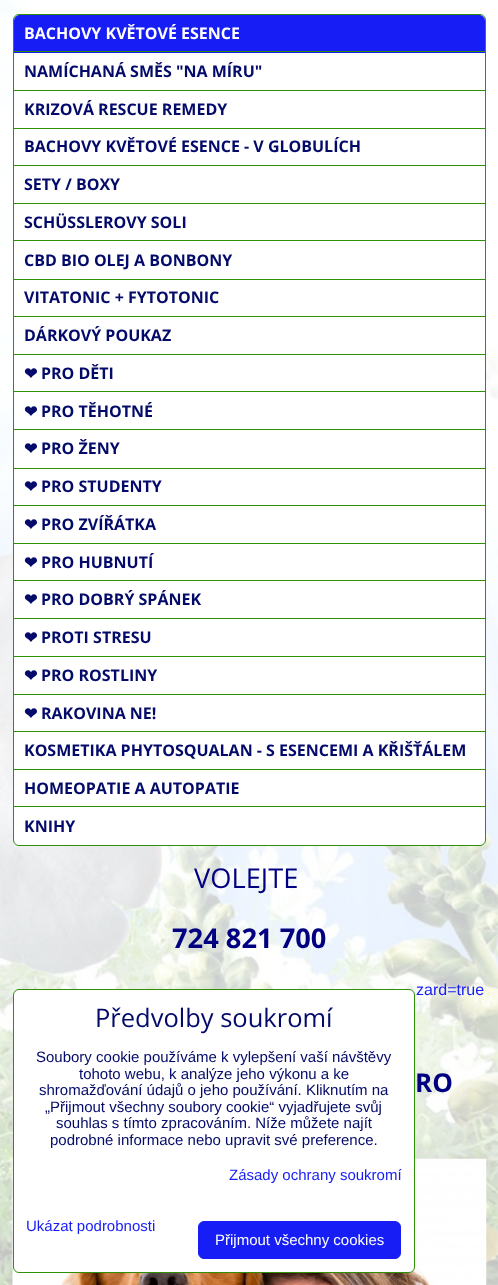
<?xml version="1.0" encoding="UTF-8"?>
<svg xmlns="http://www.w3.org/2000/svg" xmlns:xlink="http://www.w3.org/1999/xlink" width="498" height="1285">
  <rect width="100%" height="100%" fill="#ffffff" />
  <image x="0" y="0" width="498" height="1285" xlink:href="image1.png" />
  <rect x="13.5" y="14.5" width="472" height="831" rx="5.5" fill="#ffffff" stroke="#308f07" />
  <path d="M 20 15 h 459 c 3.5 0 6 2.5 6 6 v 32 h -471 v -32 c 0 -3.5 2.5 -6 6 -6 z" fill="#161df5" />
  <rect x="14" y="51" width="471" height="1" fill="#308f07" />
  <rect x="14" y="90" width="471" height="1" fill="#308f07" />
  <rect x="14" y="128" width="471" height="1" fill="#308f07" />
  <rect x="14" y="165" width="471" height="1" fill="#308f07" />
  <rect x="14" y="203" width="471" height="1" fill="#308f07" />
  <rect x="14" y="240" width="471" height="1" fill="#308f07" />
  <rect x="14" y="279" width="471" height="1" fill="#308f07" />
  <rect x="14" y="316" width="471" height="1" fill="#308f07" />
  <rect x="14" y="354" width="471" height="1" fill="#308f07" />
  <rect x="14" y="391" width="471" height="1" fill="#308f07" />
  <rect x="14" y="429" width="471" height="1" fill="#308f07" />
  <rect x="14" y="468" width="471" height="1" fill="#308f07" />
  <rect x="14" y="505" width="471" height="1" fill="#308f07" />
  <rect x="14" y="543" width="471" height="1" fill="#308f07" />
  <rect x="14" y="580" width="471" height="1" fill="#308f07" />
  <rect x="14" y="618" width="471" height="1" fill="#308f07" />
  <rect x="14" y="656" width="471" height="1" fill="#308f07" />
  <rect x="14" y="694" width="471" height="1" fill="#308f07" />
  <rect x="14" y="731" width="471" height="1" fill="#308f07" />
  <rect x="14" y="769" width="471" height="1" fill="#308f07" />
  <rect x="14" y="806" width="471" height="1" fill="#308f07" />
  <image x="12" y="1158" width="475" height="127" xlink:href="image2.png" />
  <rect x="13.5" y="989.5" width="401" height="283" rx="5.5" fill="#ffffff" stroke="#308f07" />
  <rect x="198.5" y="1221.5" width="202" height="37" rx="5.5" fill="#161df5" stroke="#161df5" />
  <text x="24" y="39" style="font-family: Open Sans; font-size: 16px; font-weight: bold; fill: #ffffff">BACHOVY KVĚTOVÉ ESENCE</text>
  <text x="24" y="77" style="font-family: Open Sans; font-size: 16px; font-weight: bold; fill: #030a69">NAMÍCHANÁ SMĚS "NA MÍRU"</text>
  <text x="24" y="115" style="font-family: Open Sans; font-size: 16px; font-weight: bold; fill: #030a69">KRIZOVÁ RESCUE REMEDY</text>
  <text x="24" y="152" style="font-family: Open Sans; font-size: 16px; font-weight: bold; fill: #030a69">BACHOVY KVĚTOVÉ ESENCE - V GLOBULÍCH</text>
  <text x="24" y="190" style="font-family: Open Sans; font-size: 16px; font-weight: bold; fill: #030a69">SETY / BOXY</text>
  <text x="24" y="228" style="font-family: Open Sans; font-size: 16px; font-weight: bold; fill: #030a69">SCHÜSSLEROVY SOLI</text>
  <text x="24" y="266" style="font-family: Open Sans; font-size: 16px; font-weight: bold; fill: #030a69">CBD BIO OLEJ A BONBONY</text>
  <text x="24" y="303" style="font-family: Open Sans; font-size: 16px; font-weight: bold; fill: #030a69">VITATONIC + FYTOTONIC</text>
  <text x="24" y="341" style="font-family: Open Sans; font-size: 16px; font-weight: bold; fill: #030a69">DÁRKOVÝ POUKAZ</text>
  <text x="24" y="379" style="font-family: DejaVu Sans; font-size: 16px; font-weight: bold; fill: #030a69">❤</text>
  <text x="41" y="379" style="font-family: Open Sans; font-size: 16px; font-weight: bold; fill: #030a69">PRO DĚTI</text>
  <text x="24" y="417" style="font-family: DejaVu Sans; font-size: 16px; font-weight: bold; fill: #030a69">❤</text>
  <text x="41" y="417" style="font-family: Open Sans; font-size: 16px; font-weight: bold; fill: #030a69">PRO TĚHOTNÉ</text>
  <text x="24" y="454" style="font-family: DejaVu Sans; font-size: 16px; font-weight: bold; fill: #030a69">❤</text>
  <text x="41" y="454" style="font-family: Open Sans; font-size: 16px; font-weight: bold; fill: #030a69">PRO ŽENY</text>
  <text x="24" y="492" style="font-family: DejaVu Sans; font-size: 16px; font-weight: bold; fill: #030a69">❤</text>
  <text x="41" y="492" style="font-family: Open Sans; font-size: 16px; font-weight: bold; fill: #030a69">PRO STUDENTY</text>
  <text x="24" y="530" style="font-family: DejaVu Sans; font-size: 16px; font-weight: bold; fill: #030a69">❤</text>
  <text x="41" y="530" style="font-family: Open Sans; font-size: 16px; font-weight: bold; fill: #030a69">PRO ZVÍŘÁTKA</text>
  <text x="24" y="568" style="font-family: DejaVu Sans; font-size: 16px; font-weight: bold; fill: #030a69">❤</text>
  <text x="41" y="568" style="font-family: Open Sans; font-size: 16px; font-weight: bold; fill: #030a69">PRO HUBNUTÍ</text>
  <text x="24" y="605" style="font-family: DejaVu Sans; font-size: 16px; font-weight: bold; fill: #030a69">❤</text>
  <text x="41" y="605" style="font-family: Open Sans; font-size: 16px; font-weight: bold; fill: #030a69">PRO DOBRÝ SPÁNEK</text>
  <text x="24" y="643" style="font-family: DejaVu Sans; font-size: 16px; font-weight: bold; fill: #030a69">❤</text>
  <text x="41" y="643" style="font-family: Open Sans; font-size: 16px; font-weight: bold; fill: #030a69">PROTI STRESU</text>
  <text x="24" y="681" style="font-family: DejaVu Sans; font-size: 16px; font-weight: bold; fill: #030a69">❤</text>
  <text x="41" y="681" style="font-family: Open Sans; font-size: 16px; font-weight: bold; fill: #030a69">PRO ROSTLINY</text>
  <text x="24" y="719" style="font-family: DejaVu Sans; font-size: 16px; font-weight: bold; fill: #030a69">❤</text>
  <text x="41" y="719" style="font-family: Open Sans; font-size: 16px; font-weight: bold; fill: #030a69">RAKOVINA NE!</text>
  <text x="24" y="756" style="font-family: Open Sans; font-size: 16px; font-weight: bold; fill: #030a69">KOSMETIKA PHYTOSQUALAN - S ESENCEMI A KŘIŠŤÁLEM</text>
  <text x="24" y="794" style="font-family: Open Sans; font-size: 16px; font-weight: bold; fill: #030a69">HOMEOPATIE A AUTOPATIE</text>
  <text x="24" y="832" style="font-family: Open Sans; font-size: 16px; font-weight: bold; fill: #030a69">KNIHY</text>
  <text x="194" y="888" style="font-family: Open Sans; font-size: 27.25px; fill: #000080">VOLEJTE</text>
  <text x="172" y="948" style="font-family: Open Sans; font-size: 27.25px; font-weight: bold; fill: #000080">724 821 700</text>
  <text x="416" y="995" style="font-family: Liberation Sans; font-size: 16px; fill: #161df5">zard=true</text>
  <text x="415" y="1092" style="font-family: Open Sans; font-size: 26px; font-weight: bold; fill: #000080">RO</text>
  <text x="95" y="1027" style="font-family: Open Sans; font-size: 25.5px; fill: #030a69">Předvolby soukromí</text>
  <text x="36" y="1062" style="font-family: Liberation Sans; font-size: 15px; fill: #030a69">Soubory cookie používáme k vylepšení vaší návštěvy</text>
  <text x="79" y="1079" style="font-family: Liberation Sans; font-size: 15px; fill: #030a69">tohoto webu, k analýze jeho výkonu a ke</text>
  <text x="39" y="1095" style="font-family: Liberation Sans; font-size: 15px; fill: #030a69">shromažďování údajů o jeho používání. Kliknutím na</text>
  <text x="45" y="1112" style="font-family: Liberation Sans; font-size: 15px; fill: #030a69">„Přijmout všechny soubory cookie“ vyjadřujete svůj</text>
  <text x="56" y="1128" style="font-family: Liberation Sans; font-size: 15px; fill: #030a69">souhlas s tímto zpracováním. Níže můžete najít</text>
  <text x="50" y="1145" style="font-family: Liberation Sans; font-size: 15px; fill: #030a69">podrobné informace nebo upravit své preference.</text>
  <text x="229" y="1180" style="font-family: Liberation Sans; font-size: 15px; fill: #161df5">Zásady ochrany soukromí</text>
  <text x="26" y="1231" style="font-family: Liberation Sans; font-size: 15px; fill: #161df5">Ukázat podrobnosti</text>
  <text x="215" y="1245" style="font-family: Liberation Sans; font-size: 15px; fill: #ffffff">Přijmout všechny cookies</text>
</svg>
